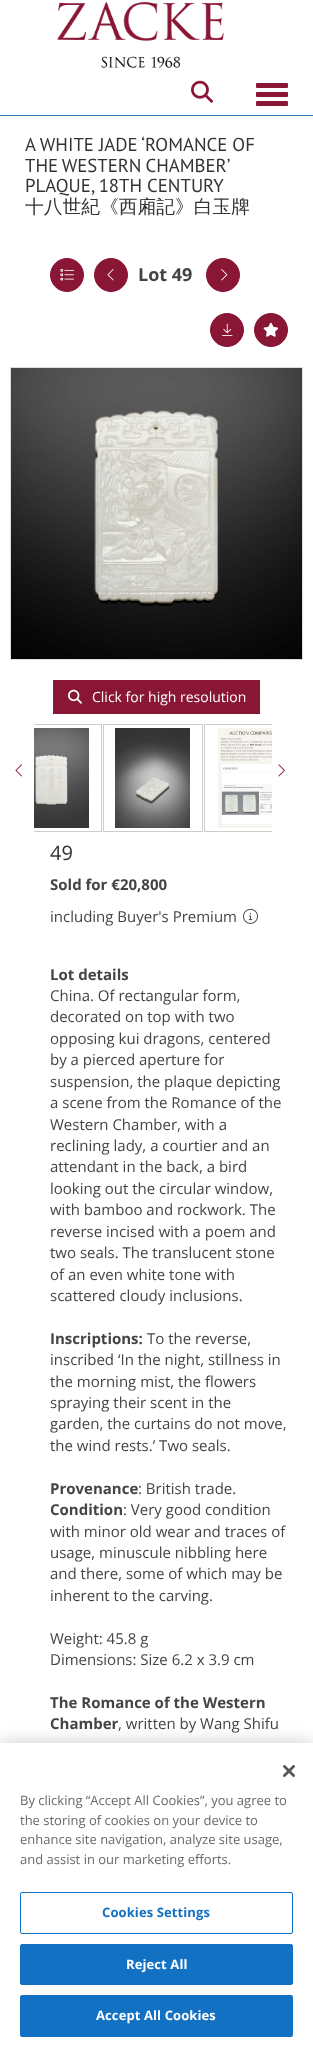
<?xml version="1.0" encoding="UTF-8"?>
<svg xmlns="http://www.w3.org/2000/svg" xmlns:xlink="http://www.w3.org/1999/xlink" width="313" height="2047">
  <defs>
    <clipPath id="clip1"><rect x="34" y="724" width="238" height="108" /></clipPath>
  </defs>
  <rect width="100%" height="100%" fill="#ffffff" />
  <image x="57" y="2" width="167" height="66" xlink:href="image1.png" />
  <rect y="115" width="313" height="1" fill="#337ab7" />
  <image x="191" y="80" width="22" height="23" xlink:href="image2.png" />
  <rect x="256" y="83" width="32" height="5" rx="1" fill="#891635" />
  <rect x="256" y="92" width="32" height="5" rx="1" fill="#891635" />
  <rect x="256" y="101" width="32" height="5" rx="1" fill="#891635" />
  <circle cx="67" cy="275" r="16.5" fill="#891635" stroke="#891635" />
  <image x="60" y="269" width="14" height="12" xlink:href="image3.png" />
  <circle cx="111" cy="275" r="16.5" fill="#891635" stroke="#891635" />
  <image x="107" y="269" width="7" height="12" xlink:href="image4.png" />
  <circle cx="223" cy="275" r="16.5" fill="#891635" stroke="#891635" />
  <image x="221" y="269" width="7" height="12" xlink:href="image5.png" />
  <circle cx="227" cy="330" r="16.5" fill="#891635" stroke="#891635" />
  <image x="222" y="323" width="11" height="13" xlink:href="image6.png" />
  <circle cx="271" cy="330" r="16.5" fill="#891635" stroke="#891635" />
  <image x="263" y="322" width="16" height="15" xlink:href="image7.png" />
  <rect x="10.5" y="367.5" width="292" height="292" fill="none" stroke="#dddddd" />
  <image x="11" y="368" width="291" height="291" xlink:href="image8.png" />
  <rect x="53" y="680" width="207" height="34" fill="#891635" />
  <image x="68" y="689" width="14" height="15" xlink:href="image9.png" />
  <image x="15" y="764" width="7" height="13" xlink:href="image13.png" />
  <g clip-path="url(#clip1)">
    <rect x="2.5" y="724.5" width="99" height="107" fill="none" stroke="#cdcdcd" />
  </g>
  <image x="34" y="728" width="55" height="100" xlink:href="image10.png" />
  <rect x="103.5" y="724.5" width="99" height="107" fill="none" stroke="#cdcdcd" />
  <image x="115" y="728" width="75" height="100" xlink:href="image11.png" />
  <image x="278" y="764" width="7" height="13" xlink:href="image14.png" />
  <g clip-path="url(#clip1)">
    <rect x="204.5" y="724.5" width="99" height="107" fill="none" stroke="#cdcdcd" />
  </g>
  <image x="218" y="728" width="54" height="100" xlink:href="image12.png" />
  <image x="243" y="908" width="15" height="16" xlink:href="image15.png" />
  <rect y="1743" width="313" height="304" fill="#000000" fill-opacity="0.2" filter="blur(9px)" />
  <rect y="1743" width="313" height="304" fill="#ffffff" />
  <image x="283" y="1765" width="12" height="12" xlink:href="image16.png" />
  <rect x="20.5" y="1892.5" width="272" height="41" rx="1.5" fill="none" stroke="#1371c3" />
  <rect x="20.5" y="1944.5" width="272" height="40" rx="1.5" fill="#1371c3" stroke="#1371c3" />
  <rect x="20.5" y="1995.5" width="272" height="41" rx="1.5" fill="#1371c3" stroke="#1371c3" />
  <text x="25" y="151" style="font-family: PT Sans; font-size: 18.75px; fill: #333333">A WHITE JADE ‘ROMANCE OF</text>
  <text x="25" y="172" word-spacing="-1" style="font-family: PT Sans; font-size: 18.75px; fill: #333333">THE WESTERN CHAMBER’</text>
  <text x="25" y="192" style="font-family: PT Sans; font-size: 18.75px; fill: #333333">PLAQUE, 18TH CENTURY</text>
  <text x="25" y="213" style="font-family: WenQuanYi Zen Hei; font-size: 18.75px; font-weight: 500; fill: #333333">十八世紀《西廂記》白玉牌</text>
  <text x="138" y="281" style="font-family: Open Sans; font-size: 18px; font-weight: bold; fill: #444444">Lot 49</text>
  <text x="92" y="702" style="font-family: Open Sans; font-size: 14px; fill: #ffffff">Click for high resolution</text>
  <text x="50" y="860" style="font-family: Open Sans; font-size: 20px; fill: #333333">49</text>
  <text x="50" y="890" style="font-family: Open Sans; font-size: 15px; font-weight: bold; fill: #444444">Sold for €20,800</text>
  <text x="50" y="922" style="font-family: Open Sans; font-size: 15px; fill: #444444">including Buyer's Premium</text>
  <text x="50" y="980" style="font-family: Open Sans; font-size: 15px; font-weight: bold; fill: #444444">Lot details</text>
  <text x="50" y="1001" style="font-family: Open Sans; font-size: 15px; fill: #444444">China. Of rectangular form,</text>
  <text x="50" y="1022" style="font-family: Open Sans; font-size: 15px; fill: #444444">decorated on top with two</text>
  <text x="50" y="1044" style="font-family: Open Sans; font-size: 15px; fill: #444444">opposing kui dragons, centered</text>
  <text x="50" y="1065" style="font-family: Open Sans; font-size: 15px; fill: #444444">by a pierced aperture for</text>
  <text x="50" y="1087" style="font-family: Open Sans; font-size: 15px; fill: #444444">suspension, the plaque depicting</text>
  <text x="50" y="1108" style="font-family: Open Sans; font-size: 15px; fill: #444444">a scene from the Romance of the</text>
  <text x="50" y="1130" style="font-family: Open Sans; font-size: 15px; fill: #444444">Western Chamber, with a</text>
  <text x="50" y="1151" style="font-family: Open Sans; font-size: 15px; fill: #444444">reclining lady, a courtier and an</text>
  <text x="50" y="1172" style="font-family: Open Sans; font-size: 15px; fill: #444444">attendant in the back, a bird</text>
  <text x="50" y="1194" style="font-family: Open Sans; font-size: 15px; fill: #444444">looking out the circular window,</text>
  <text x="50" y="1215" style="font-family: Open Sans; font-size: 15px; fill: #444444">with bamboo and rockwork. The</text>
  <text x="50" y="1237" style="font-family: Open Sans; font-size: 15px; fill: #444444">reverse incised with a poem and</text>
  <text x="50" y="1258" style="font-family: Open Sans; font-size: 15px; fill: #444444">two seals. The translucent stone</text>
  <text x="50" y="1280" style="font-family: Open Sans; font-size: 15px; fill: #444444">of an even white tone with</text>
  <text x="50" y="1301" style="font-family: Open Sans; font-size: 15px; fill: #444444">scattered cloudy inclusions.</text>
  <text x="50" y="1344" style="font-family: Open Sans; font-size: 15px; font-weight: bold; fill: #444444">Inscriptions:</text>
  <text x="147" y="1344" style="font-family: Open Sans; font-size: 15px; fill: #444444">To the reverse,</text>
  <text x="50" y="1365" style="font-family: Open Sans; font-size: 15px; fill: #444444">inscribed ‘In the night, stillness in</text>
  <text x="50" y="1387" style="font-family: Open Sans; font-size: 15px; fill: #444444">the morning mist, the flowers</text>
  <text x="50" y="1408" style="font-family: Open Sans; font-size: 15px; fill: #444444">spraying their scent in the</text>
  <text x="50" y="1429" style="font-family: Open Sans; font-size: 15px; fill: #444444">garden, the curtains do not move,</text>
  <text x="50" y="1451" style="font-family: Open Sans; font-size: 15px; fill: #444444">the wind rests.’ Two seals.</text>
  <text x="50" y="1494" style="font-family: Open Sans; font-size: 15px; font-weight: bold; fill: #444444">Provenance</text>
  <text x="138" y="1494" style="font-family: Open Sans; font-size: 15px; fill: #444444">: British trade.</text>
  <text x="50" y="1515" style="font-family: Open Sans; font-size: 15px; font-weight: bold; fill: #444444">Condition</text>
  <text x="123" y="1515" style="font-family: Open Sans; font-size: 15px; fill: #444444">: Very good condition</text>
  <text x="50" y="1537" style="font-family: Open Sans; font-size: 15px; fill: #444444">with minor old wear and traces of</text>
  <text x="50" y="1558" style="font-family: Open Sans; font-size: 15px; fill: #444444">usage, minuscule nibbling here</text>
  <text x="50" y="1579" style="font-family: Open Sans; font-size: 15px; fill: #444444">and there, some of which may be</text>
  <text x="50" y="1601" style="font-family: Open Sans; font-size: 15px; fill: #444444">inherent to the carving.</text>
  <text x="50" y="1644" style="font-family: Open Sans; font-size: 15px; fill: #444444">Weight: 45.8 g</text>
  <text x="50" y="1665" style="font-family: Open Sans; font-size: 15px; fill: #444444">Dimensions: Size 6.2 x 3.9 cm</text>
  <text x="50" y="1708" style="font-family: Open Sans; font-size: 15px; font-weight: bold; fill: #444444">The Romance of the Western</text>
  <text x="50" y="1729" style="font-family: Open Sans; font-size: 15px; font-weight: bold; fill: #444444">Chamber</text>
  <text x="118" y="1729" style="font-family: Open Sans; font-size: 15px; fill: #444444">, written by Wang Shifu</text>
  <text x="20" y="1805" style="font-family: Open Sans; font-size: 13px; fill: #696969">By clicking “Accept All Cookies”, you agree to</text>
  <text x="20" y="1825" style="font-family: Open Sans; font-size: 13px; fill: #696969">the storing of cookies on your device to</text>
  <text x="20" y="1844" style="font-family: Open Sans; font-size: 13px; fill: #696969">enhance site navigation, analyze site usage,</text>
  <text x="20" y="1864" style="font-family: Open Sans; font-size: 13px; fill: #696969">and assist in our marketing efforts.</text>
  <text x="102" y="1917" style="font-family: Open Sans; font-size: 13px; font-weight: bold; letter-spacing: 0.1px; fill: #1371c3">Cookies Settings</text>
  <text x="126" y="1969" style="font-family: Open Sans; font-size: 13px; font-weight: bold; letter-spacing: 0.1px; fill: #ffffff">Reject All</text>
  <text x="96" y="2020" style="font-family: Open Sans; font-size: 13px; font-weight: bold; letter-spacing: 0.1px; fill: #ffffff">Accept All Cookies</text>
</svg>
